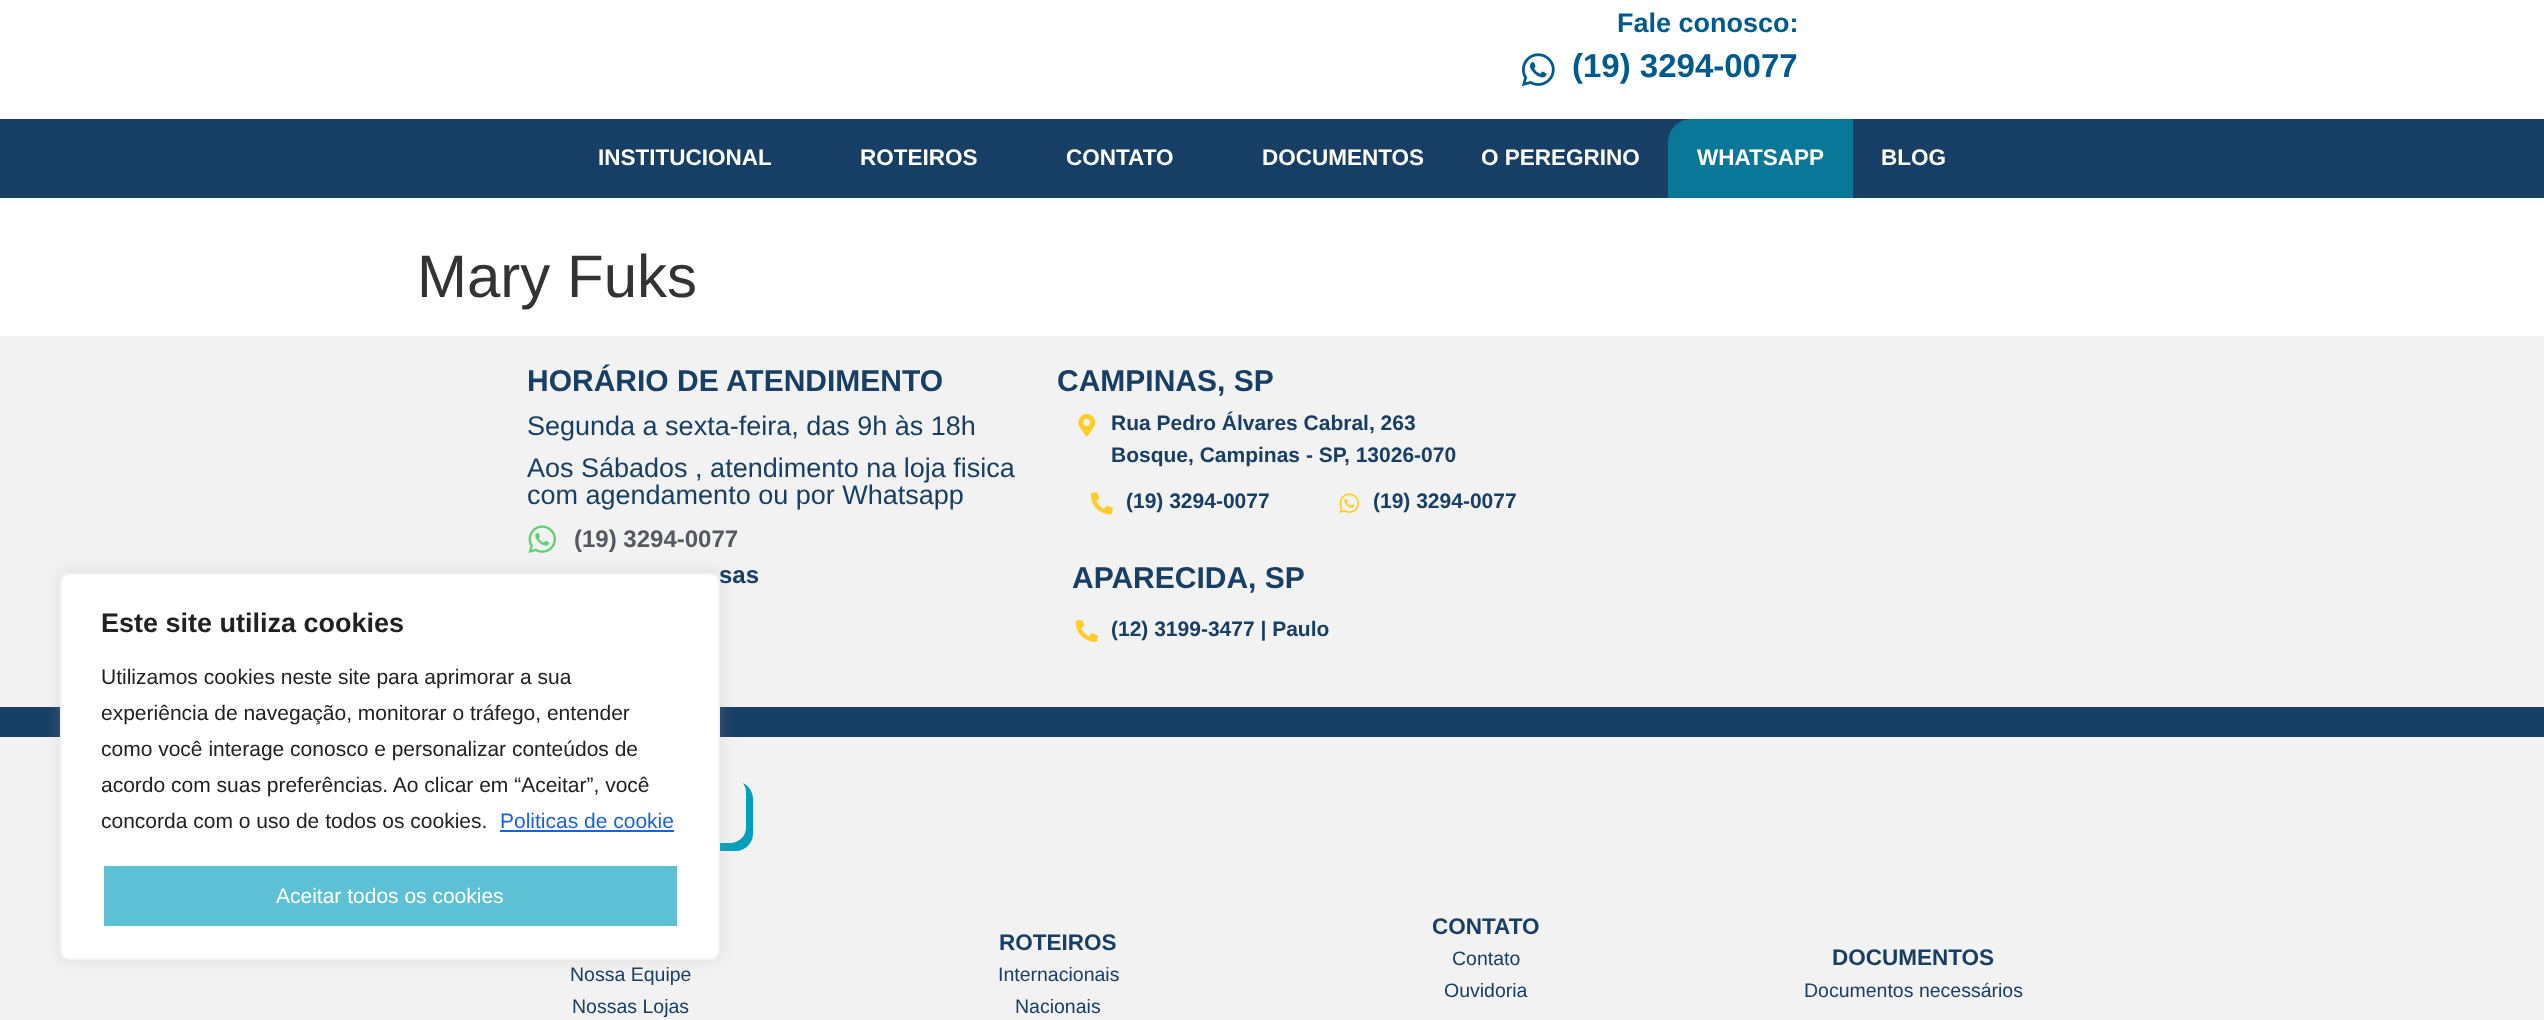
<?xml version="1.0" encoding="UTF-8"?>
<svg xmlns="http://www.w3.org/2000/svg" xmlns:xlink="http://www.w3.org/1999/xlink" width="2544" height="1020">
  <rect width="100%" height="100%" fill="#ffffff" />
  <image x="1521" y="53" width="34" height="34" xlink:href="image1.png" />
  <rect y="119" width="2544" height="79" fill="#173e64" />
  <path d="M 1691 119 h 162 v 79 h -185 v -56 c 0 -12.5 10.5 -23 23 -23 z" fill="#097898" />
  <rect y="336" width="2544" height="371" fill="#f2f2f2" />
  <image x="528" y="525" width="28" height="28" xlink:href="image2.png" />
  <rect y="707" width="2544" height="30" fill="#173e64" />
  <rect y="737" width="2544" height="283" fill="#f2f2f2" />
  <path d="M 423 840 c 3 6 9 11 16 11 h 297 c 9 0 17 -8 17 -17 v -35 c 0 -7 -4 -13 -10 -16 c 2 3 3 6 3 9 v 36 c 0 8 -7 15 -16 15 h -298 c -3 0 -6 -1 -9 -3 z" fill="#009fbb" />
  <rect x="60" y="572" width="660" height="387" rx="9" fill="#acabab" fill-opacity="0.3" filter="blur(7.5px)" />
  <rect x="61" y="574" width="658" height="385" rx="8" fill="#ffffff" stroke="#f4f4f4" stroke-width="2" />
  <rect x="500" y="830" width="174" height="2" fill="#1863dc" />
  <rect x="102.5" y="864.5" width="576" height="63" rx="1.5" fill="#5dc0d4" stroke="#ffffff" stroke-width="3" />
  <image x="1078" y="414" width="18" height="23" xlink:href="image3.png" />
  <image x="1091" y="492" width="22" height="23" xlink:href="image4.png" />
  <image x="1339" y="493" width="21" height="20" xlink:href="image5.png" />
  <image x="1076" y="620" width="22" height="22" xlink:href="image6.png" />
  <text x="1617" y="32" style="font-family: Liberation Sans; font-size: 27px; font-weight: bold; fill: #005a8e">Fale conosco:</text>
  <text x="1572" y="77" style="font-family: Liberation Sans; font-size: 33px; font-weight: bold; fill: #005a8e">(19) 3294-0077</text>
  <text x="598" y="165" style="font-family: Liberation Sans; font-size: 22.5px; font-weight: bold; fill: #ffffff">INSTITUCIONAL</text>
  <text x="860" y="165" style="font-family: Liberation Sans; font-size: 22.5px; font-weight: bold; fill: #ffffff">ROTEIROS</text>
  <text x="1066" y="165" style="font-family: Liberation Sans; font-size: 22.5px; font-weight: bold; fill: #ffffff">CONTATO</text>
  <text x="1262" y="165" style="font-family: Liberation Sans; font-size: 22.5px; font-weight: bold; fill: #ffffff">DOCUMENTOS</text>
  <text x="1481" y="165" style="font-family: Liberation Sans; font-size: 22.5px; font-weight: bold; fill: #ffffff">O PEREGRINO</text>
  <text x="1697" y="165" style="font-family: Liberation Sans; font-size: 22.5px; font-weight: bold; fill: #ffffff">WHATSAPP</text>
  <text x="1881" y="165" style="font-family: Liberation Sans; font-size: 22.5px; font-weight: bold; fill: #ffffff">BLOG</text>
  <text x="417" y="297" style="font-family: Liberation Sans; font-size: 60px; fill: #333333">Mary Fuks</text>
  <text x="101" y="632" style="font-family: Liberation Sans; font-size: 27px; font-weight: bold; fill: #212121">Este site utiliza cookies</text>
  <text x="101" y="684" style="font-family: Liberation Sans; font-size: 21px; fill: #212121">Utilizamos cookies neste site para aprimorar a sua</text>
  <text x="101" y="720" style="font-family: Liberation Sans; font-size: 21px; fill: #212121">experiência de navegação, monitorar o tráfego, entender</text>
  <text x="101" y="756" style="font-family: Liberation Sans; font-size: 21px; fill: #212121">como você interage conosco e personalizar conteúdos de</text>
  <text x="101" y="792" style="font-family: Liberation Sans; font-size: 21px; fill: #212121">acordo com suas preferências. Ao clicar em “Aceitar”, você</text>
  <text x="101" y="828" style="font-family: Liberation Sans; font-size: 21px; fill: #212121">concorda com o uso de todos os cookies.</text>
  <text x="500" y="828" style="font-family: Liberation Sans; font-size: 21px; fill: #1863dc">Politicas de cookie</text>
  <text x="276" y="903" style="font-family: Liberation Sans; font-size: 21px; fill: #ffffff">Aceitar todos os cookies</text>
  <text x="527" y="391" style="font-family: Liberation Sans; font-size: 30px; font-weight: bold; fill: #173e64">HORÁRIO DE ATENDIMENTO</text>
  <text x="527" y="435" style="font-family: Liberation Sans; font-size: 27px; fill: #173e64">Segunda a sexta-feira, das 9h às 18h</text>
  <text x="527" y="477" style="font-family: Liberation Sans; font-size: 27px; fill: #173e64">Aos Sábados , atendimento na loja fisica</text>
  <text x="527" y="504" style="font-family: Liberation Sans; font-size: 27px; fill: #173e64">com agendamento ou por Whatsapp</text>
  <text x="574" y="547" style="font-family: Liberation Sans; font-size: 24px; font-weight: bold; fill: #54595f">(19) 3294-0077</text>
  <text x="719" y="583" style="font-family: Liberation Sans; font-size: 24px; font-weight: bold; fill: #173e64">sas</text>
  <text x="1057" y="391" style="font-family: Liberation Sans; font-size: 30px; font-weight: bold; fill: #173e64">CAMPINAS, SP</text>
  <text x="1111" y="430" style="font-family: Liberation Sans; font-size: 21px; font-weight: bold; fill: #173e64">Rua Pedro Álvares Cabral, 263</text>
  <text x="1111" y="462" style="font-family: Liberation Sans; font-size: 21px; font-weight: bold; fill: #173e64">Bosque, Campinas - SP, 13026-070</text>
  <text x="1126" y="508" style="font-family: Liberation Sans; font-size: 21px; font-weight: bold; fill: #173e64">(19) 3294-0077</text>
  <text x="1373" y="508" style="font-family: Liberation Sans; font-size: 21px; font-weight: bold; fill: #173e64">(19) 3294-0077</text>
  <text x="1072" y="588" style="font-family: Liberation Sans; font-size: 30px; font-weight: bold; fill: #173e64">APARECIDA, SP</text>
  <text x="1111" y="636" style="font-family: Liberation Sans; font-size: 21px; font-weight: bold; fill: #173e64">(12) 3199-3477 | Paulo</text>
  <text x="570" y="981" style="font-family: Liberation Sans; font-size: 19.5px; fill: #173e64">Nossa Equipe</text>
  <text x="572" y="1013" style="font-family: Liberation Sans; font-size: 19.5px; fill: #173e64">Nossas Lojas</text>
  <text x="999" y="950" style="font-family: Liberation Sans; font-size: 22.5px; font-weight: bold; fill: #173e64">ROTEIROS</text>
  <text x="998" y="981" style="font-family: Liberation Sans; font-size: 19.5px; fill: #173e64">Internacionais</text>
  <text x="1015" y="1013" style="font-family: Liberation Sans; font-size: 19.5px; fill: #173e64">Nacionais</text>
  <text x="1432" y="934" style="font-family: Liberation Sans; font-size: 22.5px; font-weight: bold; fill: #173e64">CONTATO</text>
  <text x="1452" y="965" style="font-family: Liberation Sans; font-size: 19.5px; fill: #173e64">Contato</text>
  <text x="1444" y="997" style="font-family: Liberation Sans; font-size: 19.5px; fill: #173e64">Ouvidoria</text>
  <text x="1832" y="965" style="font-family: Liberation Sans; font-size: 22.5px; font-weight: bold; fill: #173e64">DOCUMENTOS</text>
  <text x="1804" y="997" style="font-family: Liberation Sans; font-size: 19.5px; fill: #173e64">Documentos necessários</text>
</svg>
